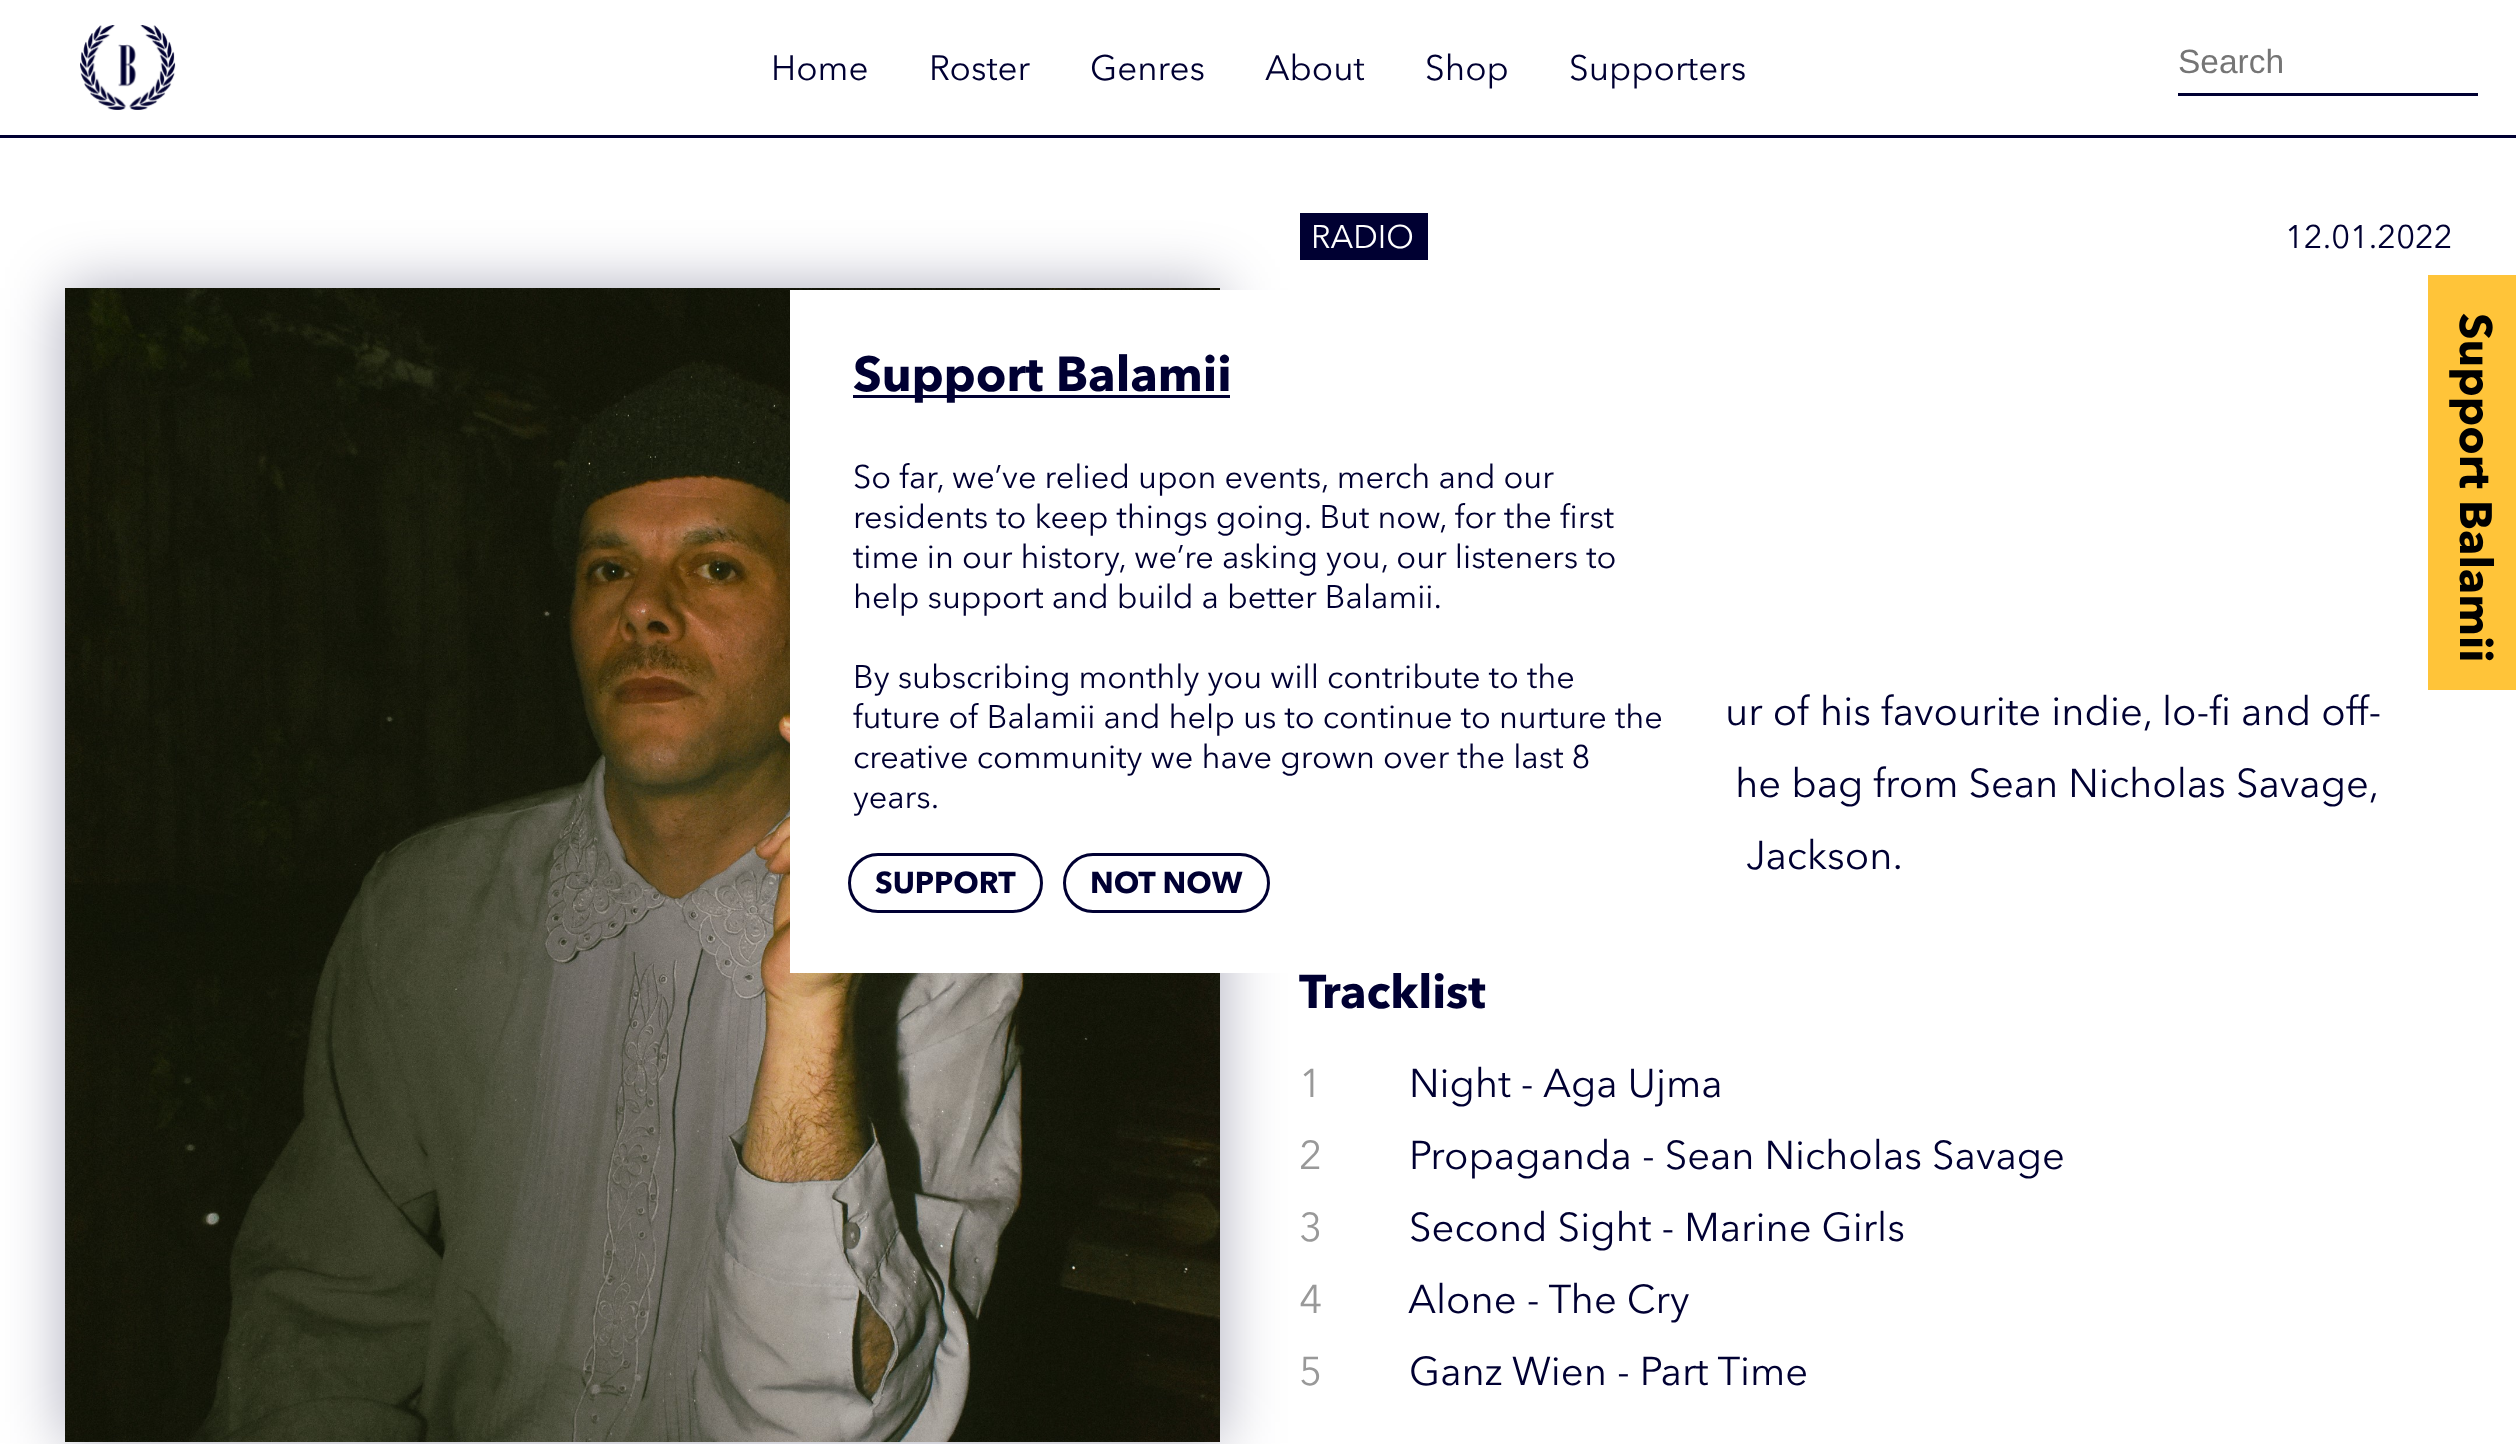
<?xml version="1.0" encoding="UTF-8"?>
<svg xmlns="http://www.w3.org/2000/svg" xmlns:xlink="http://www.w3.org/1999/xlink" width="2516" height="1444">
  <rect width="100%" height="100%" fill="#ffffff" />
  <rect y="135" width="2516" height="3" fill="#000032" />
  <image x="80" y="25" width="96" height="85" xlink:href="image1.png" />
  <rect x="2178" y="93" width="300" height="3" fill="#000032" />
  <rect x="1300" y="213" width="128" height="47" fill="#000032" />
  <rect x="65" y="288" width="1155" height="1155" fill="#000231" fill-opacity="0.33" filter="blur(31px)" />
  <image x="65" y="288" width="1155" height="1154" xlink:href="image2.png" />
  <rect x="2428" y="275" width="88" height="415" fill="#ffc439" />
  <text x="771" y="80" style="font-family: Avenir Next; font-size: 35px; fill: #000032">Home</text>
  <text x="929" y="80" style="font-family: Avenir Next; font-size: 35px; fill: #000032">Roster</text>
  <text x="1090" y="80" style="font-family: Avenir Next; font-size: 35px; fill: #000032">Genres</text>
  <text x="1265" y="80" style="font-family: Avenir Next; font-size: 35px; fill: #000032">About</text>
  <text x="1425" y="80" style="font-family: Avenir Next; font-size: 35px; fill: #000032">Shop</text>
  <text x="1569" y="80" style="font-family: Avenir Next; font-size: 35px; fill: #000032">Supporters</text>
  <text x="2178" y="73" style="font-family: Liberation Sans; font-size: 33.5px; fill: #757575">Search</text>
  <text x="1311" y="248" style="font-family: Avenir Next; font-size: 32.5px; fill: #ffffff">RADIO</text>
  <text x="2285" y="248" style="font-family: Avenir Next; font-size: 32.5px; fill: #000032">12.01.2022</text>
  <text x="1725" y="725" style="font-family: Avenir Next; font-size: 40px; fill: #000032">ur of his favourite indie, lo-fi and off-</text>
  <text x="1735" y="797" style="font-family: Avenir Next; font-size: 40px; fill: #000032">he bag from Sean Nicholas Savage,</text>
  <text x="1746" y="869" style="font-family: Avenir Next; font-size: 40px; fill: #000032">Jackson.</text>
  <text x="1299" y="1008" style="font-family: Avenir Next; font-size: 47px; font-weight: bold; fill: #000032">Tracklist</text>
  <rect x="790" y="290" width="639" height="683" fill="#ffffff" />
  <rect x="1064.5" y="854.5" width="204" height="57" rx="28.5" fill="none" stroke="#000032" stroke-width="3" />
  <text x="1090" y="893" style="font-family: Avenir Next; font-size: 30px; font-weight: bold; fill: #000032">NOT NOW</text>
  <rect x="849.5" y="854.5" width="192" height="57" rx="28.5" fill="none" stroke="#000032" stroke-width="3" />
  <text x="875" y="893" style="font-family: Avenir Next; font-size: 30px; font-weight: bold; fill: #000032">SUPPORT</text>
  <text x="853" y="808" style="font-family: Avenir Next; font-size: 32.5px; fill: #000032">years.</text>
  <text x="853" y="768" style="font-family: Avenir Next; font-size: 32.5px; fill: #000032">creative community we have grown over the last 8</text>
  <text x="853" y="728" style="font-family: Avenir Next; font-size: 32.5px; fill: #000032">future of Balamii and help us to continue to nurture the</text>
  <text x="853" y="688" style="font-family: Avenir Next; font-size: 32.5px; fill: #000032">By subscribing monthly you will contribute to the</text>
  <text x="853" y="608" style="font-family: Avenir Next; font-size: 32.5px; fill: #000032">help support and build a better Balamii.</text>
  <text x="853" y="568" style="font-family: Avenir Next; font-size: 32.5px; fill: #000032">time in our history, we’re asking you, our listeners to</text>
  <text x="853" y="528" style="font-family: Avenir Next; font-size: 32.5px; fill: #000032">residents to keep things going. But now, for the first</text>
  <text x="853" y="488" style="font-family: Avenir Next; font-size: 32.5px; fill: #000032">So far, we’ve relied upon events, merch and our</text>
  <rect x="853" y="395" width="377" height="3" fill="#000032" />
  <text x="853" y="391" style="font-family: Avenir Next; font-size: 48.75px; font-weight: bold; fill: #000032">Support Balamii</text>
  <text x="1299" y="1097" style="font-family: Avenir Next; font-size: 40px; fill: #999999">1</text>
  <text x="1409" y="1097" style="font-family: Avenir Next; font-size: 40px; fill: #000032">Night - Aga Ujma</text>
  <text x="1299" y="1169" style="font-family: Avenir Next; font-size: 40px; fill: #999999">2</text>
  <text x="1409" y="1169" style="font-family: Avenir Next; font-size: 40px; fill: #000032">Propaganda - Sean Nicholas Savage</text>
  <text x="1299" y="1241" style="font-family: Avenir Next; font-size: 40px; fill: #999999">3</text>
  <text x="1409" y="1241" style="font-family: Avenir Next; font-size: 40px; fill: #000032">Second Sight - Marine Girls</text>
  <text x="1299" y="1313" style="font-family: Avenir Next; font-size: 40px; fill: #999999">4</text>
  <text x="1408" y="1313" style="font-family: Avenir Next; font-size: 40px; fill: #000032">Alone - The Cry</text>
  <text x="1299" y="1385" style="font-family: Avenir Next; font-size: 40px; fill: #999999">5</text>
  <text x="1409" y="1385" style="font-family: Avenir Next; font-size: 40px; fill: #000032">Ganz Wien - Part Time</text>
  <text x="2460" y="313" transform="rotate(90 2460 313)" style="font-family: Avenir Next; font-size: 45px; font-weight: bold; fill: #000000">Support Balamii</text>
</svg>
